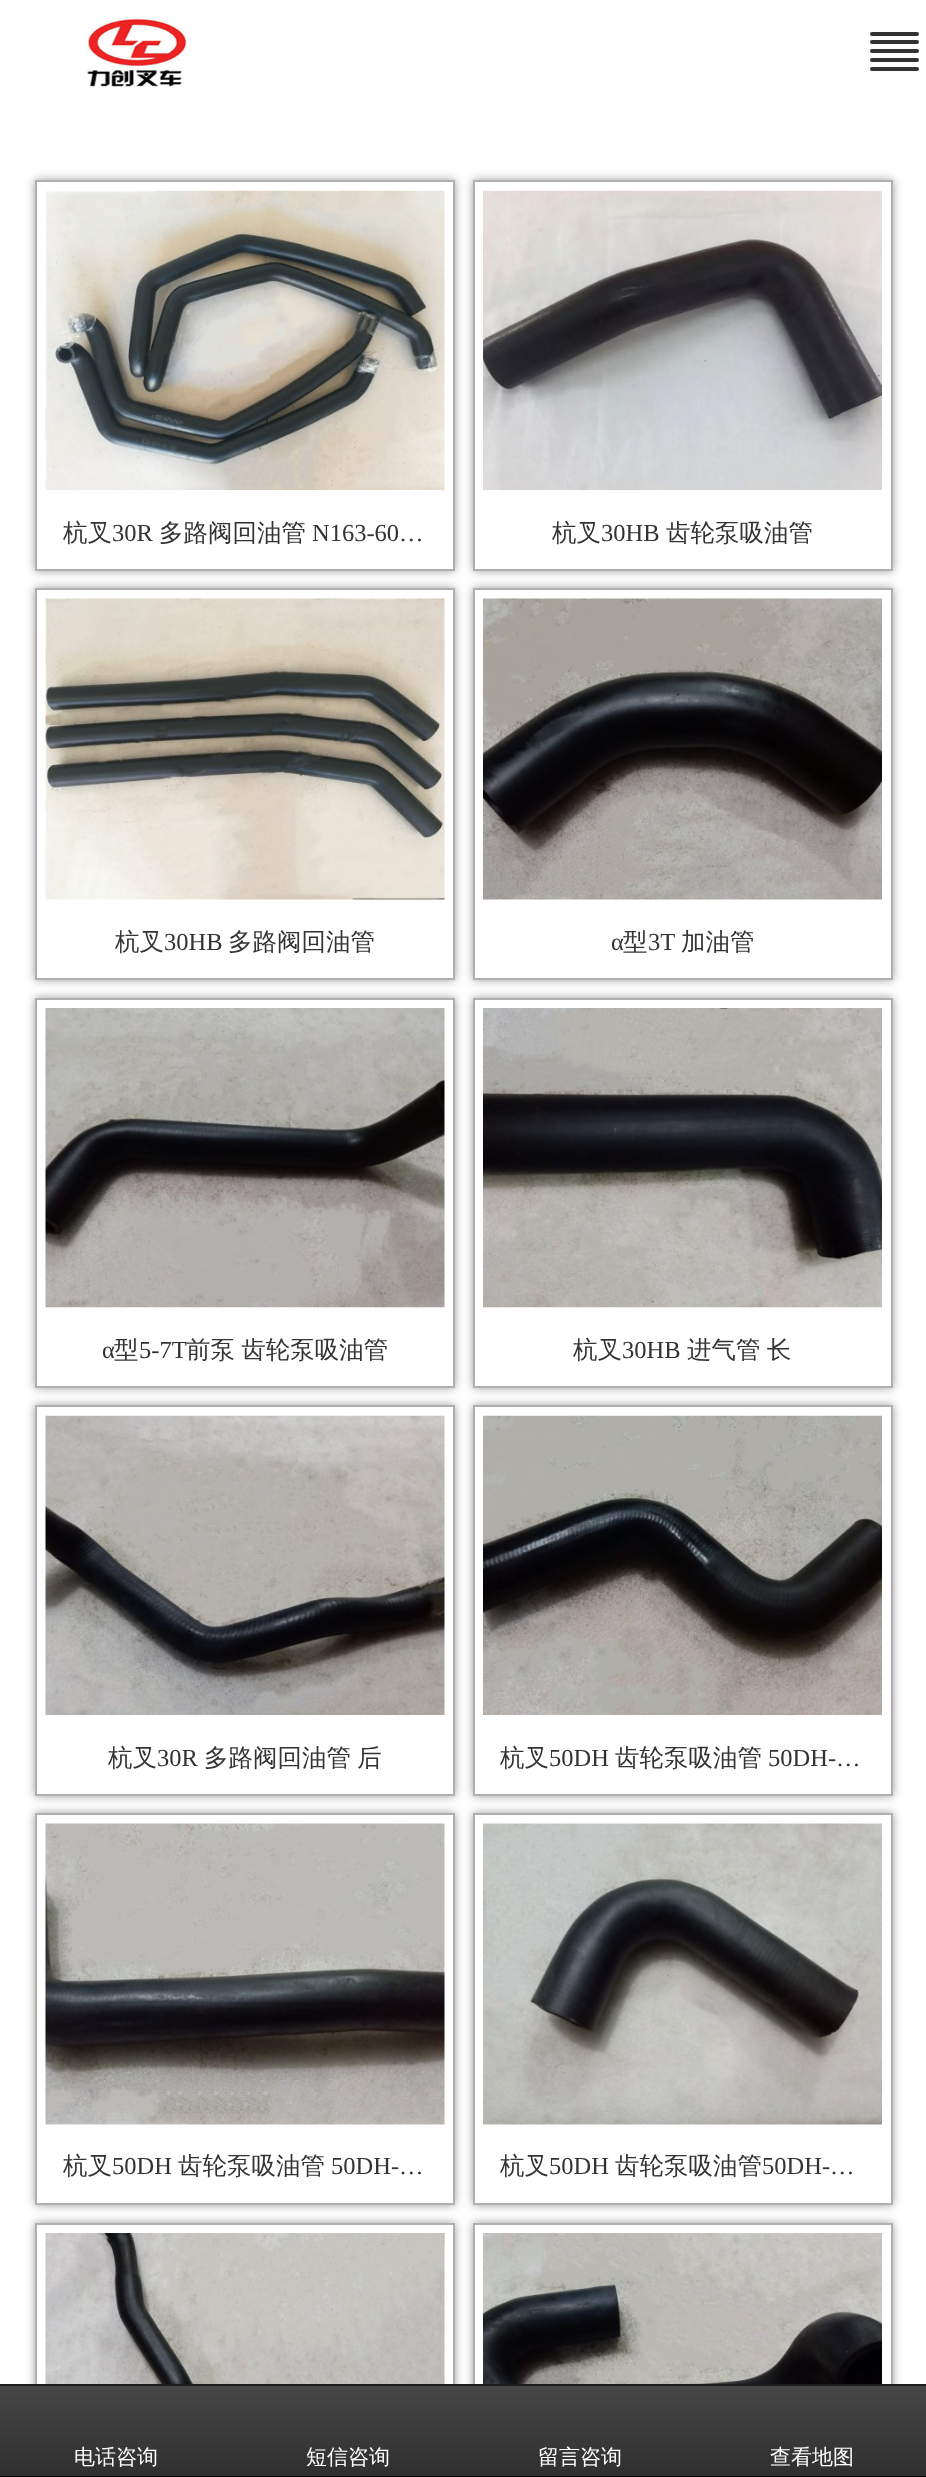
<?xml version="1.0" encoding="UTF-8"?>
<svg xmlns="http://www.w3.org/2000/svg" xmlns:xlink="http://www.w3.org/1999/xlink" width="926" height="2477">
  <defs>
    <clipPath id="clip1"><path d="M 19 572 h 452 v 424 h -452 z m 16 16 h 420 v 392 h -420 z" clip-rule="evenodd" /></clipPath>
    <clipPath id="clip2"><path d="M 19 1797 h 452 v 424 h -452 z m 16 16 h 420 v 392 h -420 z" clip-rule="evenodd" /></clipPath>
    <clipPath id="clip3"><path d="M 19 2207 h 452 v 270 h -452 z m 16 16 h 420 v 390 h -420 z" clip-rule="evenodd" /></clipPath>
    <linearGradient id="g1" gradientUnits="userSpaceOnUse" x1="464" y1="2385" x2="464" y2="2476"><stop offset="0" stop-color="#474747" /><stop offset="1" stop-color="#2f2f2f" /></linearGradient>
  </defs>
  <rect width="100%" height="100%" fill="#ffffff" />
  <image x="85" y="17" width="106" height="70" xlink:href="image1.png" />
  <rect x="870" y="32" width="49" height="4" rx="2" fill="#333333" />
  <rect x="870" y="40" width="49" height="4" rx="2" fill="#333333" />
  <rect x="870" y="49" width="49" height="4" rx="2" fill="#333333" />
  <rect x="870" y="58" width="49" height="4" rx="2" fill="#333333" />
  <rect x="870" y="67" width="49" height="4" rx="2" fill="#333333" />
  <rect x="35" y="180" width="420" height="391" fill="#000000" fill-opacity="0.4" filter="blur(5px)" />
  <rect x="36" y="181" width="418" height="389" fill="#ffffff" stroke="#b0aeae" stroke-width="2" />
  <image x="45" y="190" width="400" height="300" xlink:href="image2.png" />
  <rect x="473" y="180" width="420" height="391" fill="#000000" fill-opacity="0.4" filter="blur(5px)" />
  <rect x="474" y="181" width="418" height="389" fill="#ffffff" stroke="#b0aeae" stroke-width="2" />
  <image x="483" y="190" width="399" height="300" xlink:href="image3.png" />
  <g clip-path="url(#clip1)">
    <rect x="35" y="588" width="420" height="392" fill="#000000" fill-opacity="0.4" filter="blur(5px)" />
  </g>
  <rect x="36" y="589" width="418" height="390" fill="none" stroke="#b0aeae" stroke-width="2" />
  <image x="45" y="598" width="400" height="302" xlink:href="image4.png" />
  <rect x="473" y="588" width="420" height="392" fill="#000000" fill-opacity="0.4" filter="blur(5px)" />
  <rect x="474" y="589" width="418" height="390" fill="#ffffff" stroke="#b0aeae" stroke-width="2" />
  <image x="483" y="598" width="399" height="302" xlink:href="image5.png" />
  <rect x="35" y="998" width="420" height="390" fill="#000000" fill-opacity="0.4" filter="blur(5px)" />
  <rect x="36" y="999" width="418" height="388" fill="#ffffff" stroke="#b0aeae" stroke-width="2" />
  <image x="45" y="1008" width="400" height="300" xlink:href="image6.png" />
  <rect x="473" y="998" width="420" height="390" fill="#000000" fill-opacity="0.4" filter="blur(5px)" />
  <rect x="474" y="999" width="418" height="388" fill="#ffffff" stroke="#b0aeae" stroke-width="2" />
  <image x="483" y="1008" width="399" height="300" xlink:href="image7.png" />
  <rect x="35" y="1405" width="420" height="391" fill="#000000" fill-opacity="0.4" filter="blur(5px)" />
  <rect x="36" y="1406" width="418" height="389" fill="#ffffff" stroke="#b0aeae" stroke-width="2" />
  <image x="45" y="1415" width="400" height="300" xlink:href="image8.png" />
  <rect x="473" y="1405" width="420" height="391" fill="#000000" fill-opacity="0.4" filter="blur(5px)" />
  <rect x="474" y="1406" width="418" height="389" fill="#ffffff" stroke="#b0aeae" stroke-width="2" />
  <image x="483" y="1415" width="399" height="300" xlink:href="image9.png" />
  <g clip-path="url(#clip2)">
    <rect x="35" y="1813" width="420" height="392" fill="#000000" fill-opacity="0.4" filter="blur(5px)" />
  </g>
  <rect x="36" y="1814" width="418" height="390" fill="none" stroke="#b0aeae" stroke-width="2" />
  <image x="45" y="1823" width="400" height="302" xlink:href="image10.png" />
  <rect x="473" y="1813" width="420" height="392" fill="#000000" fill-opacity="0.4" filter="blur(5px)" />
  <rect x="474" y="1814" width="418" height="390" fill="#ffffff" stroke="#b0aeae" stroke-width="2" />
  <image x="483" y="1823" width="399" height="302" xlink:href="image11.png" />
  <g clip-path="url(#clip3)">
    <rect x="35" y="2223" width="420" height="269" fill="#000000" fill-opacity="0.4" filter="blur(5px)" />
  </g>
  <rect x="36" y="2224" width="418" height="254" fill="none" stroke="#b0aeae" stroke-width="2" />
  <image x="45" y="2233" width="400" height="151" xlink:href="image12.png" />
  <rect x="473" y="2223" width="420" height="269" fill="#000000" fill-opacity="0.4" filter="blur(5px)" />
  <rect x="475" y="2225" width="416" height="159" fill="#ffffff" />
  <rect x="474" y="2224" width="418" height="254" fill="none" stroke="#b0aeae" stroke-width="2" />
  <image x="483" y="2233" width="399" height="151" xlink:href="image13.png" />
  <rect y="2386" width="926" height="90" fill="url(#g1)" />
  <rect y="2384" width="926" height="2" fill="#1d1d1d" />
  <rect y="2476" width="926" height="1" fill="#000000" />
  <text x="63" y="541" style="font-family: WenQuanYi Zen Hei; font-size: 24.5px; font-weight: 500; fill: #333333">杭叉</text>
  <text x="112" y="541" style="font-family: Liberation Serif; font-size: 24.5px; fill: #333333">30R</text>
  <text x="159" y="541" style="font-family: WenQuanYi Zen Hei; font-size: 24.5px; font-weight: 500; fill: #333333">多路阀回油管</text>
  <text x="312" y="541" style="font-family: Liberation Serif; font-size: 24.5px; fill: #333333">N163-60…</text>
  <text x="552" y="541" style="font-family: WenQuanYi Zen Hei; font-size: 24.5px; font-weight: 500; fill: #333333">杭叉</text>
  <text x="601" y="541" style="font-family: Liberation Serif; font-size: 24.5px; fill: #333333">30HB</text>
  <text x="666" y="541" style="font-family: WenQuanYi Zen Hei; font-size: 24.5px; font-weight: 500; fill: #333333">齿轮泵吸油管</text>
  <text x="115" y="950" style="font-family: WenQuanYi Zen Hei; font-size: 24.5px; font-weight: 500; fill: #333333">杭叉</text>
  <text x="164" y="950" style="font-family: Liberation Serif; font-size: 24.5px; fill: #333333">30HB</text>
  <text x="228" y="950" style="font-family: WenQuanYi Zen Hei; font-size: 24.5px; font-weight: 500; fill: #333333">多路阀回油管</text>
  <text x="611" y="950" style="font-family: Liberation Serif; font-size: 24.5px; fill: #333333">α</text>
  <text x="623" y="950" style="font-family: WenQuanYi Zen Hei; font-size: 24.5px; font-weight: 500; fill: #333333">型</text>
  <text x="648" y="950" style="font-family: Liberation Serif; font-size: 24.5px; fill: #333333">3T</text>
  <text x="681" y="950" style="font-family: WenQuanYi Zen Hei; font-size: 24.5px; font-weight: 500; fill: #333333">加油管</text>
  <text x="102" y="1358" style="font-family: Liberation Serif; font-size: 24.5px; fill: #333333">α</text>
  <text x="114" y="1358" style="font-family: WenQuanYi Zen Hei; font-size: 24.5px; font-weight: 500; fill: #333333">型</text>
  <text x="139" y="1358" style="font-family: Liberation Serif; font-size: 24.5px; fill: #333333">5-7T</text>
  <text x="186" y="1358" word-spacing="-1" style="font-family: WenQuanYi Zen Hei; font-size: 24.5px; font-weight: 500; fill: #333333">前泵 齿轮泵吸油管</text>
  <text x="573" y="1358" style="font-family: WenQuanYi Zen Hei; font-size: 24.5px; font-weight: 500; fill: #333333">杭叉</text>
  <text x="622" y="1358" style="font-family: Liberation Serif; font-size: 24.5px; fill: #333333">30HB</text>
  <text x="687" y="1358" word-spacing="-1" style="font-family: WenQuanYi Zen Hei; font-size: 24.5px; font-weight: 500; fill: #333333">进气管 长</text>
  <text x="108" y="1766" style="font-family: WenQuanYi Zen Hei; font-size: 24.5px; font-weight: 500; fill: #333333">杭叉</text>
  <text x="157" y="1766" style="font-family: Liberation Serif; font-size: 24.5px; fill: #333333">30R</text>
  <text x="204" y="1766" word-spacing="-1" style="font-family: WenQuanYi Zen Hei; font-size: 24.5px; font-weight: 500; fill: #333333">多路阀回油管 后</text>
  <text x="500" y="1766" style="font-family: WenQuanYi Zen Hei; font-size: 24.5px; font-weight: 500; fill: #333333">杭叉</text>
  <text x="549" y="1766" style="font-family: Liberation Serif; font-size: 24.5px; fill: #333333">50DH</text>
  <text x="615" y="1766" style="font-family: WenQuanYi Zen Hei; font-size: 24.5px; font-weight: 500; fill: #333333">齿轮泵吸油管</text>
  <text x="768" y="1766" style="font-family: Liberation Serif; font-size: 24.5px; fill: #333333">50DH-…</text>
  <text x="63" y="2174" style="font-family: WenQuanYi Zen Hei; font-size: 24.5px; font-weight: 500; fill: #333333">杭叉</text>
  <text x="112" y="2174" style="font-family: Liberation Serif; font-size: 24.5px; fill: #333333">50DH</text>
  <text x="178" y="2174" style="font-family: WenQuanYi Zen Hei; font-size: 24.5px; font-weight: 500; fill: #333333">齿轮泵吸油管</text>
  <text x="331" y="2174" style="font-family: Liberation Serif; font-size: 24.5px; fill: #333333">50DH-…</text>
  <text x="500" y="2174" style="font-family: WenQuanYi Zen Hei; font-size: 24.5px; font-weight: 500; fill: #333333">杭叉</text>
  <text x="549" y="2174" style="font-family: Liberation Serif; font-size: 24.5px; fill: #333333">50DH</text>
  <text x="615" y="2174" style="font-family: WenQuanYi Zen Hei; font-size: 24.5px; font-weight: 500; fill: #333333">齿轮泵吸油管</text>
  <text x="762" y="2174" style="font-family: Liberation Serif; font-size: 24.5px; fill: #333333">50DH-…</text>
  <text x="74" y="2464" style="font-family: WenQuanYi Zen Hei; font-size: 21px; font-weight: 500; fill: #ffffff">电话咨询</text>
  <text x="306" y="2464" style="font-family: WenQuanYi Zen Hei; font-size: 21px; font-weight: 500; fill: #ffffff">短信咨询</text>
  <text x="538" y="2464" style="font-family: WenQuanYi Zen Hei; font-size: 21px; font-weight: 500; fill: #ffffff">留言咨询</text>
  <text x="770" y="2464" style="font-family: WenQuanYi Zen Hei; font-size: 21px; font-weight: 500; fill: #ffffff">查看地图</text>
</svg>
